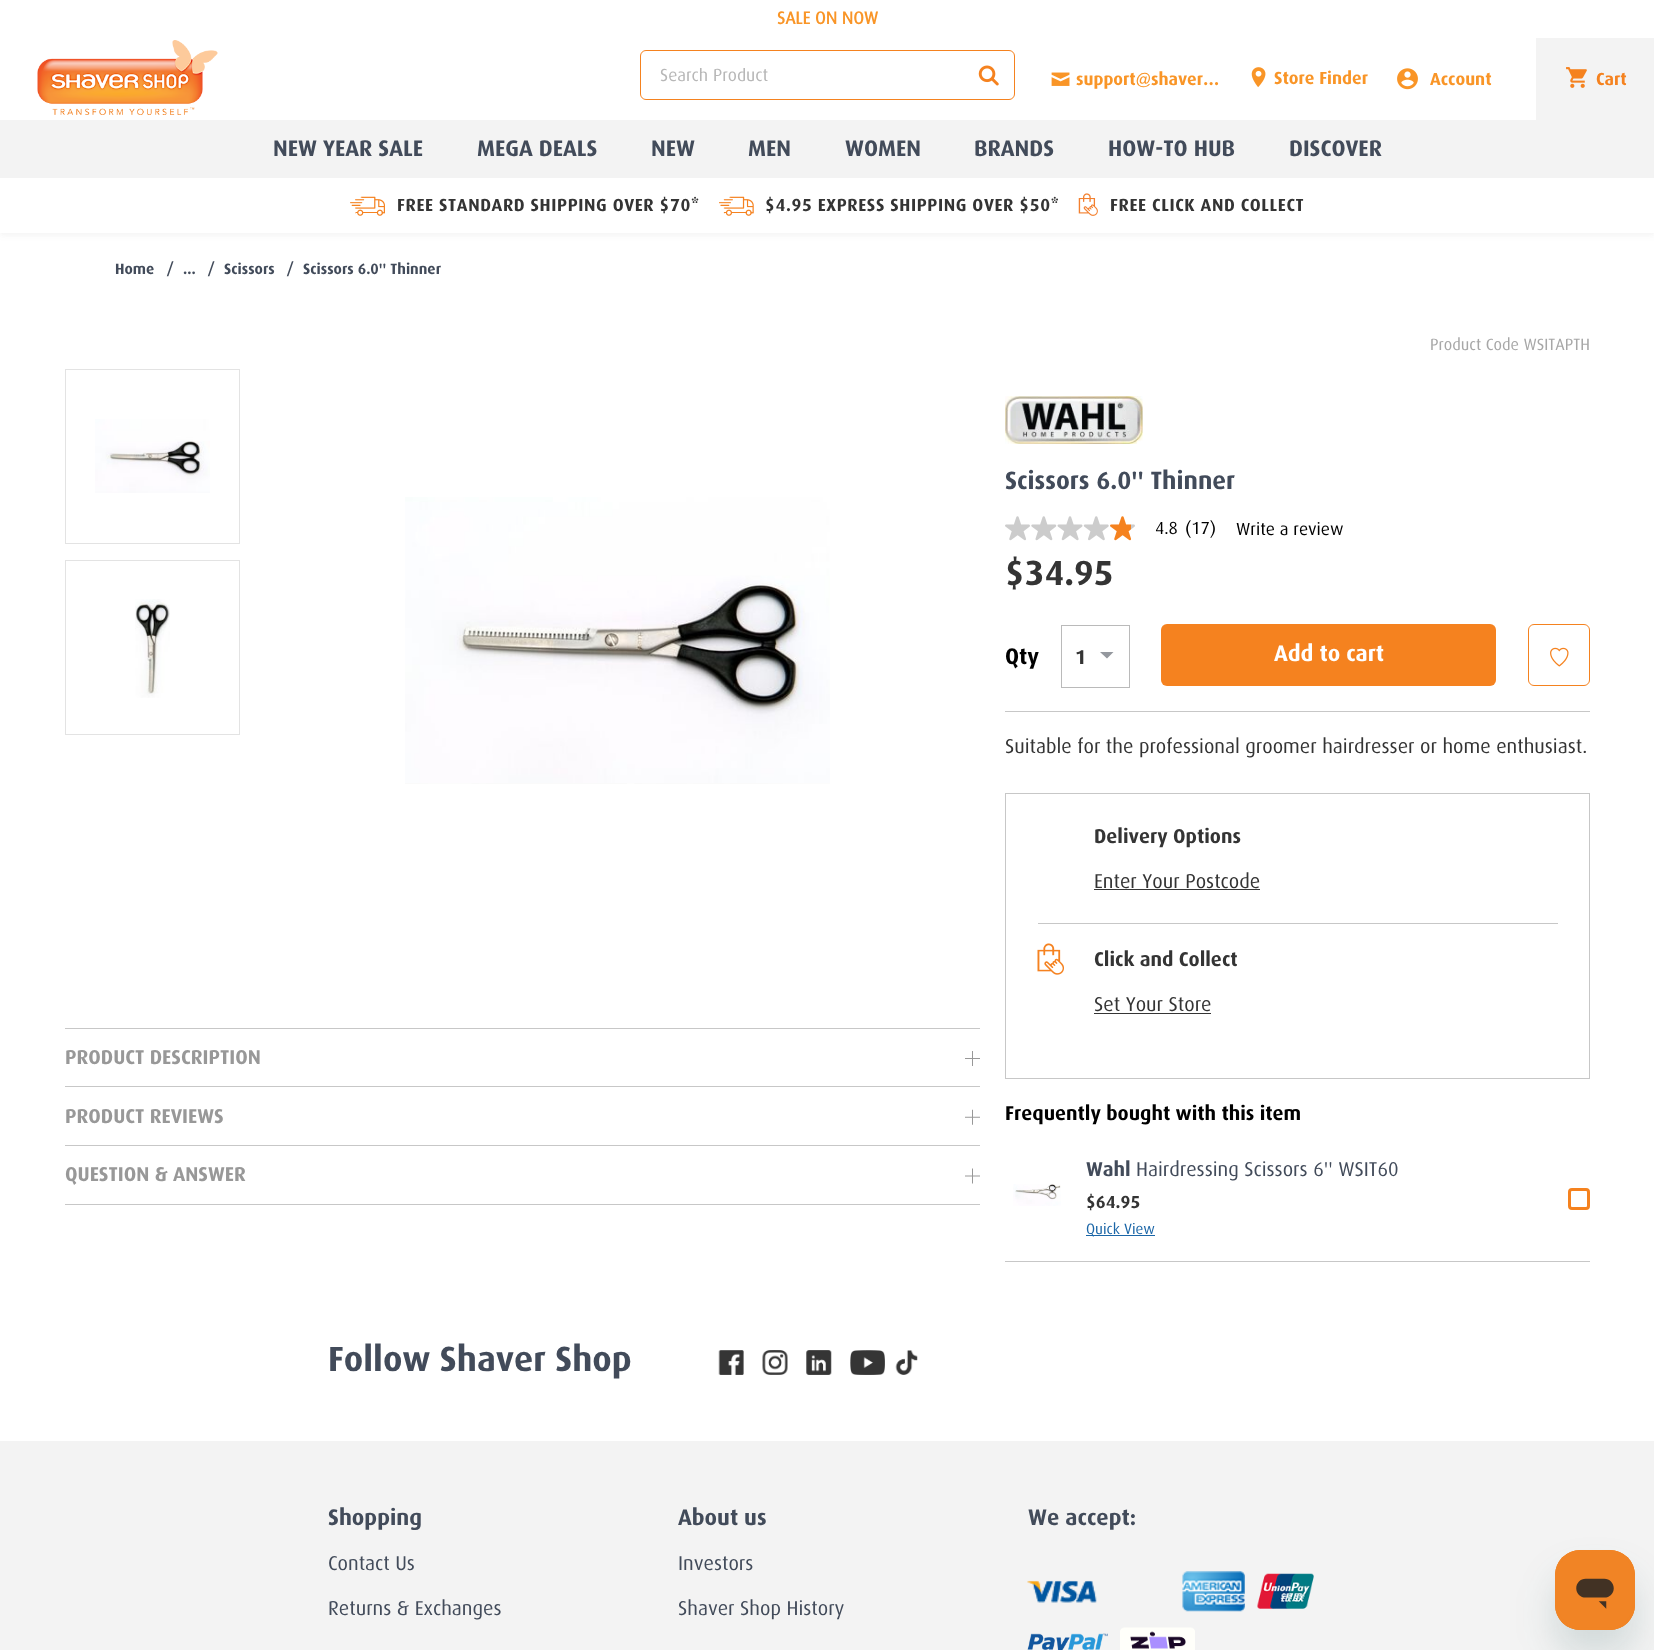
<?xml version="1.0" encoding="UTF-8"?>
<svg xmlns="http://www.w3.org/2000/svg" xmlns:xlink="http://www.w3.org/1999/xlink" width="1654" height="1650">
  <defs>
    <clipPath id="clip1"><rect x="660" y="68" width="335" height="17" /></clipPath>
  </defs>
  <rect width="100%" height="100%" fill="#ffffff" />
  <rect y="180" width="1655" height="55" fill="#585858" fill-opacity="0.08" filter="blur(3px)" />
  <rect y="120" width="1654" height="58" fill="#f3f3f3" />
  <rect x="640.5" y="50.5" width="374" height="49" rx="5.5" fill="none" stroke="#f5821f" />
  <image x="978" y="65" width="21" height="21" xlink:href="image1.png" />
  <image x="1051" y="72" width="19" height="14" xlink:href="image2.png" />
  <image x="1251" y="67" width="15" height="21" xlink:href="image3.png" />
  <image x="1397" y="68" width="21" height="22" xlink:href="image4.png" />
  <image x="37" y="40" width="181" height="75" xlink:href="image5.png" />
  <rect x="1536" y="38" width="118" height="82" fill="#f3f3f3" />
  <image x="1566" y="67" width="21" height="21" xlink:href="image6.png" />
  <rect y="178" width="1654" height="55" fill="#ffffff" />
  <image x="350" y="196" width="35" height="20" xlink:href="image7.png" />
  <image x="719" y="196" width="35" height="20" xlink:href="image8.png" />
  <image x="1078" y="193" width="20" height="23" xlink:href="image9.png" />
  <rect x="65.5" y="369.5" width="174" height="174" fill="none" stroke="#e3e3e3" />
  <image x="95" y="419" width="115" height="74" xlink:href="image10.png" />
  <rect x="65.5" y="560.5" width="174" height="174" fill="none" stroke="#e3e3e3" />
  <image x="135" y="599" width="35" height="99" xlink:href="image11.png" />
  <image x="405" y="497" width="425" height="287" xlink:href="image12.png" />
  <rect x="65" y="1028" width="915" height="1" fill="#c7c7c7" />
  <rect x="65" y="1086" width="915" height="1" fill="#c7c7c7" />
  <image x="965" y="1051" width="15" height="15" xlink:href="image13.png" />
  <rect x="65" y="1145" width="915" height="1" fill="#c7c7c7" />
  <image x="965" y="1109" width="15" height="16" xlink:href="image14.png" />
  <rect x="65" y="1204" width="915" height="1" fill="#c7c7c7" />
  <image x="965" y="1168" width="15" height="16" xlink:href="image15.png" />
  <image x="1005" y="396" width="138" height="48" xlink:href="image16.png" />
  <image x="1005" y="516" width="25" height="25" xlink:href="image17.png" />
  <image x="1031" y="516" width="26" height="25" xlink:href="image18.png" />
  <image x="1057" y="516" width="26" height="25" xlink:href="image19.png" />
  <image x="1083" y="516" width="26" height="25" xlink:href="image20.png" />
  <image x="1110" y="516" width="25" height="25" xlink:href="image21.png" />
  <rect x="1161" y="624" width="335" height="62" rx="6" fill="#f5821f" />
  <rect x="1528.5" y="624.5" width="61" height="61" rx="5.5" fill="none" stroke="#f5821f" />
  <image x="1550" y="647" width="19" height="20" xlink:href="image22.png" />
  <rect x="1005" y="711" width="585" height="1" fill="#c7c7c7" />
  <rect x="1005.5" y="793.5" width="584" height="285" fill="none" stroke="#c7c7c7" />
  <rect x="1038" y="923" width="520" height="1" fill="#c7c7c7" />
  <rect x="1094" y="889" width="166" height="1" fill="#353535" />
  <image x="1037" y="943" width="27" height="32" xlink:href="image23.png" />
  <rect x="1094" y="1013" width="117" height="1" fill="#353535" />
  <rect x="1061.5" y="625.5" width="68" height="62" fill="none" stroke="#bababa" />
  <path d="M 1100 652 h 13.5 l -6.5 6.5 z" fill="#94989e" />
  <rect x="1005" y="1261" width="585" height="1" fill="#c7c7c7" />
  <image x="1013" y="1184" width="48" height="22" xlink:href="image24.png" />
  <rect x="1569.5" y="1189.5" width="19" height="19" rx="2.5" fill="none" stroke="#f5821f" stroke-width="3" />
  <rect x="1086" y="1235" width="69" height="1" fill="#1b66a7" />
  <rect y="1441" width="1654" height="209" fill="#f3f3f3" />
  <image x="718" y="1350" width="26" height="25" xlink:href="image25.png" />
  <image x="762" y="1350" width="26" height="25" xlink:href="image26.png" />
  <image x="806" y="1350" width="26" height="25" xlink:href="image27.png" />
  <image x="850" y="1350" width="35" height="25" xlink:href="image28.png" />
  <image x="895" y="1350" width="23" height="25" xlink:href="image29.png" />
  <image x="1027" y="1580" width="70" height="23" xlink:href="image30.png" />
  <image x="1182" y="1571" width="63" height="41" xlink:href="image31.png" />
  <image x="1257" y="1573" width="57" height="36" xlink:href="image32.png" />
  <image x="1027" y="1633" width="81" height="17" xlink:href="image33.png" />
  <image x="1120" y="1627" width="75" height="23" xlink:href="image34.png" />
  <rect x="1555" y="1575" width="80" height="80" rx="25" fill="#17494d" fill-opacity="0.15" filter="blur(19px)" />
  <image x="1555" y="1550" width="80" height="80" xlink:href="image35.png" />
  <text x="777" y="24" style="font-family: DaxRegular; font-size: 17.5px; font-weight: bold; fill: #f99527">SALE ON NOW</text>
  <g clip-path="url(#clip1)">
    <text x="660" y="81" style="font-family: DaxRegular; font-size: 17.5px; fill: #b7b7b7">Search Product</text>
  </g>
  <text x="1076" y="85" style="font-family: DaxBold; font-size: 17.5px; font-weight: bold; fill: #f99527">support@shaver…</text>
  <text x="1274" y="84" style="font-family: DaxBold; font-size: 17.5px; font-weight: bold; fill: #f99527">Store Finder</text>
  <text x="1430" y="85" style="font-family: DaxBold; font-size: 17.5px; font-weight: bold; fill: #f99527">Account</text>
  <text x="273" y="156" style="font-family: DaxBold; font-size: 22.5px; font-weight: bold; fill: #424b5a">NEW YEAR SALE</text>
  <text x="477" y="156" style="font-family: DaxBold; font-size: 22.5px; font-weight: bold; fill: #424b5a">MEGA DEALS</text>
  <text x="651" y="156" style="font-family: DaxBold; font-size: 22.5px; font-weight: bold; fill: #424b5a">NEW</text>
  <text x="748" y="156" style="font-family: DaxBold; font-size: 22.5px; font-weight: bold; fill: #424b5a">MEN</text>
  <text x="845" y="156" style="font-family: DaxBold; font-size: 22.5px; font-weight: bold; fill: #424b5a">WOMEN</text>
  <text x="974" y="156" style="font-family: DaxBold; font-size: 22.5px; font-weight: bold; fill: #424b5a">BRANDS</text>
  <text x="1108" y="156" style="font-family: DaxBold; font-size: 22.5px; font-weight: bold; fill: #424b5a">HOW-TO HUB</text>
  <text x="1289" y="156" style="font-family: DaxBold; font-size: 22.5px; font-weight: bold; fill: #424b5a">DISCOVER</text>
  <text x="1596" y="85" style="font-family: DaxBold; font-size: 17.5px; font-weight: bold; fill: #f5821f">Cart</text>
  <text x="397" y="211" style="font-family: DaxBold; font-size: 17.5px; font-weight: bold; letter-spacing: 0.6px; fill: #343434">FREE STANDARD SHIPPING OVER $70*</text>
  <text x="765" y="211" style="font-family: DaxBold; font-size: 17.5px; font-weight: bold; letter-spacing: 0.6px; fill: #343434">$4.95 EXPRESS SHIPPING OVER $50*</text>
  <text x="1110" y="211" style="font-family: DaxBold; font-size: 17.5px; font-weight: bold; letter-spacing: 0.6px; fill: #343434">FREE CLICK AND COLLECT</text>
  <text x="115" y="274" style="font-family: DaxBold; font-size: 15px; font-weight: bold; fill: #424b5a">Home</text>
  <text x="167" y="276" style="font-family: Liberation Serif; font-size: 22.5px; font-weight: bold; fill: #424b5a">/</text>
  <text x="183" y="274" style="font-family: DaxBold; font-size: 15px; font-weight: bold; fill: #424b5a">...</text>
  <text x="208" y="276" style="font-family: Liberation Serif; font-size: 22.5px; font-weight: bold; fill: #424b5a">/</text>
  <text x="224" y="274" style="font-family: DaxBold; font-size: 15px; font-weight: bold; fill: #424b5a">Scissors</text>
  <text x="287" y="276" style="font-family: Liberation Serif; font-size: 22.5px; font-weight: bold; fill: #424b5a">/</text>
  <text x="303" y="274" style="font-family: DaxBold; font-size: 15px; font-weight: bold; fill: #424b5a">Scissors 6.0'' Thinner</text>
  <text x="65" y="1064" style="font-family: DaxBold; font-size: 20px; font-weight: bold; fill: #989898">PRODUCT DESCRIPTION</text>
  <text x="65" y="1123" style="font-family: DaxBold; font-size: 20px; font-weight: bold; fill: #989898">PRODUCT REVIEWS</text>
  <text x="65" y="1181" style="font-family: DaxBold; font-size: 20px; font-weight: bold; fill: #989898">QUESTION &amp; ANSWER</text>
  <text x="1430" y="350" style="font-family: DaxRegular; font-size: 16.25px; fill: #a7a7a7">Product Code WSITAPTH</text>
  <text x="1005" y="489" style="font-family: DaxBold; font-size: 25px; font-weight: bold; fill: #424b5a">Scissors 6.0'' Thinner</text>
  <text x="1155" y="534" style="font-family: DaxRegular; font-size: 17.5px; fill: #000000">4.8</text>
  <text x="1185" y="534" style="font-family: DaxRegular; font-size: 17.5px; fill: #000000">(17)</text>
  <text x="1236" y="535" style="font-family: DaxRegular; font-size: 17.5px; fill: #000000">Write a review</text>
  <text x="1005" y="585" style="font-family: DaxBold; font-size: 35px; font-weight: bold; fill: #343434">$34.95</text>
  <text x="1274" y="661" style="font-family: DaxBold; font-size: 22.5px; font-weight: bold; fill: #ffffff">Add to cart</text>
  <text x="1005" y="753" style="font-family: DaxRegular; font-size: 20px; fill: #343434">Suitable for the professional groomer hairdresser or home enthusiast.</text>
  <text x="1094" y="843" style="font-family: DaxBold; font-size: 20px; font-weight: bold; fill: #343434">Delivery Options</text>
  <text x="1094" y="888" style="font-family: DaxRegular; font-size: 20px; fill: #343434">Enter Your Postcode</text>
  <text x="1094" y="966" style="font-family: DaxBold; font-size: 20px; font-weight: bold; fill: #343434">Click and Collect</text>
  <text x="1094" y="1011" style="font-family: DaxRegular; font-size: 20px; fill: #343434">Set Your Store</text>
  <text x="1005" y="664" style="font-family: DaxBold; font-size: 22.5px; font-weight: bold; fill: #000000">Qty</text>
  <text x="1075" y="664" style="font-family: DaxBold; font-size: 20px; font-weight: bold; fill: #343434">1</text>
  <text x="1005" y="1120" style="font-family: DaxBold; font-size: 20px; font-weight: bold; fill: #000000">Frequently bought with this item</text>
  <text x="1086" y="1176" style="font-family: DaxBold; font-size: 20px; font-weight: bold; fill: #424b5a">Wahl</text>
  <text x="1136" y="1176" style="font-family: DaxRegular; font-size: 20px; fill: #424b5a">Hairdressing Scissors 6'' WSIT60</text>
  <text x="1086" y="1208" style="font-family: DaxBold; font-size: 17.5px; font-weight: bold; fill: #343434">$64.95</text>
  <text x="1086" y="1234" style="font-family: DaxRegular; font-size: 15px; fill: #1b66a7">Quick View</text>
  <text x="328" y="1371" style="font-family: DaxBold; font-size: 35px; font-weight: bold; fill: #424b5a">Follow Shaver Shop</text>
  <text x="328" y="1525" style="font-family: DaxBold; font-size: 22.5px; font-weight: bold; fill: #424b5a">Shopping</text>
  <text x="328" y="1570" style="font-family: DaxRegular; font-size: 20px; fill: #424b5a">Contact Us</text>
  <text x="328" y="1615" style="font-family: DaxRegular; font-size: 20px; fill: #424b5a">Returns &amp; Exchanges</text>
  <text x="678" y="1525" style="font-family: DaxBold; font-size: 22.5px; font-weight: bold; fill: #424b5a">About us</text>
  <text x="678" y="1570" style="font-family: DaxRegular; font-size: 20px; fill: #424b5a">Investors</text>
  <text x="678" y="1615" style="font-family: DaxRegular; font-size: 20px; fill: #424b5a">Shaver Shop History</text>
  <text x="1028" y="1525" style="font-family: DaxBold; font-size: 22.5px; font-weight: bold; fill: #424b5a">We accept:</text>
</svg>
